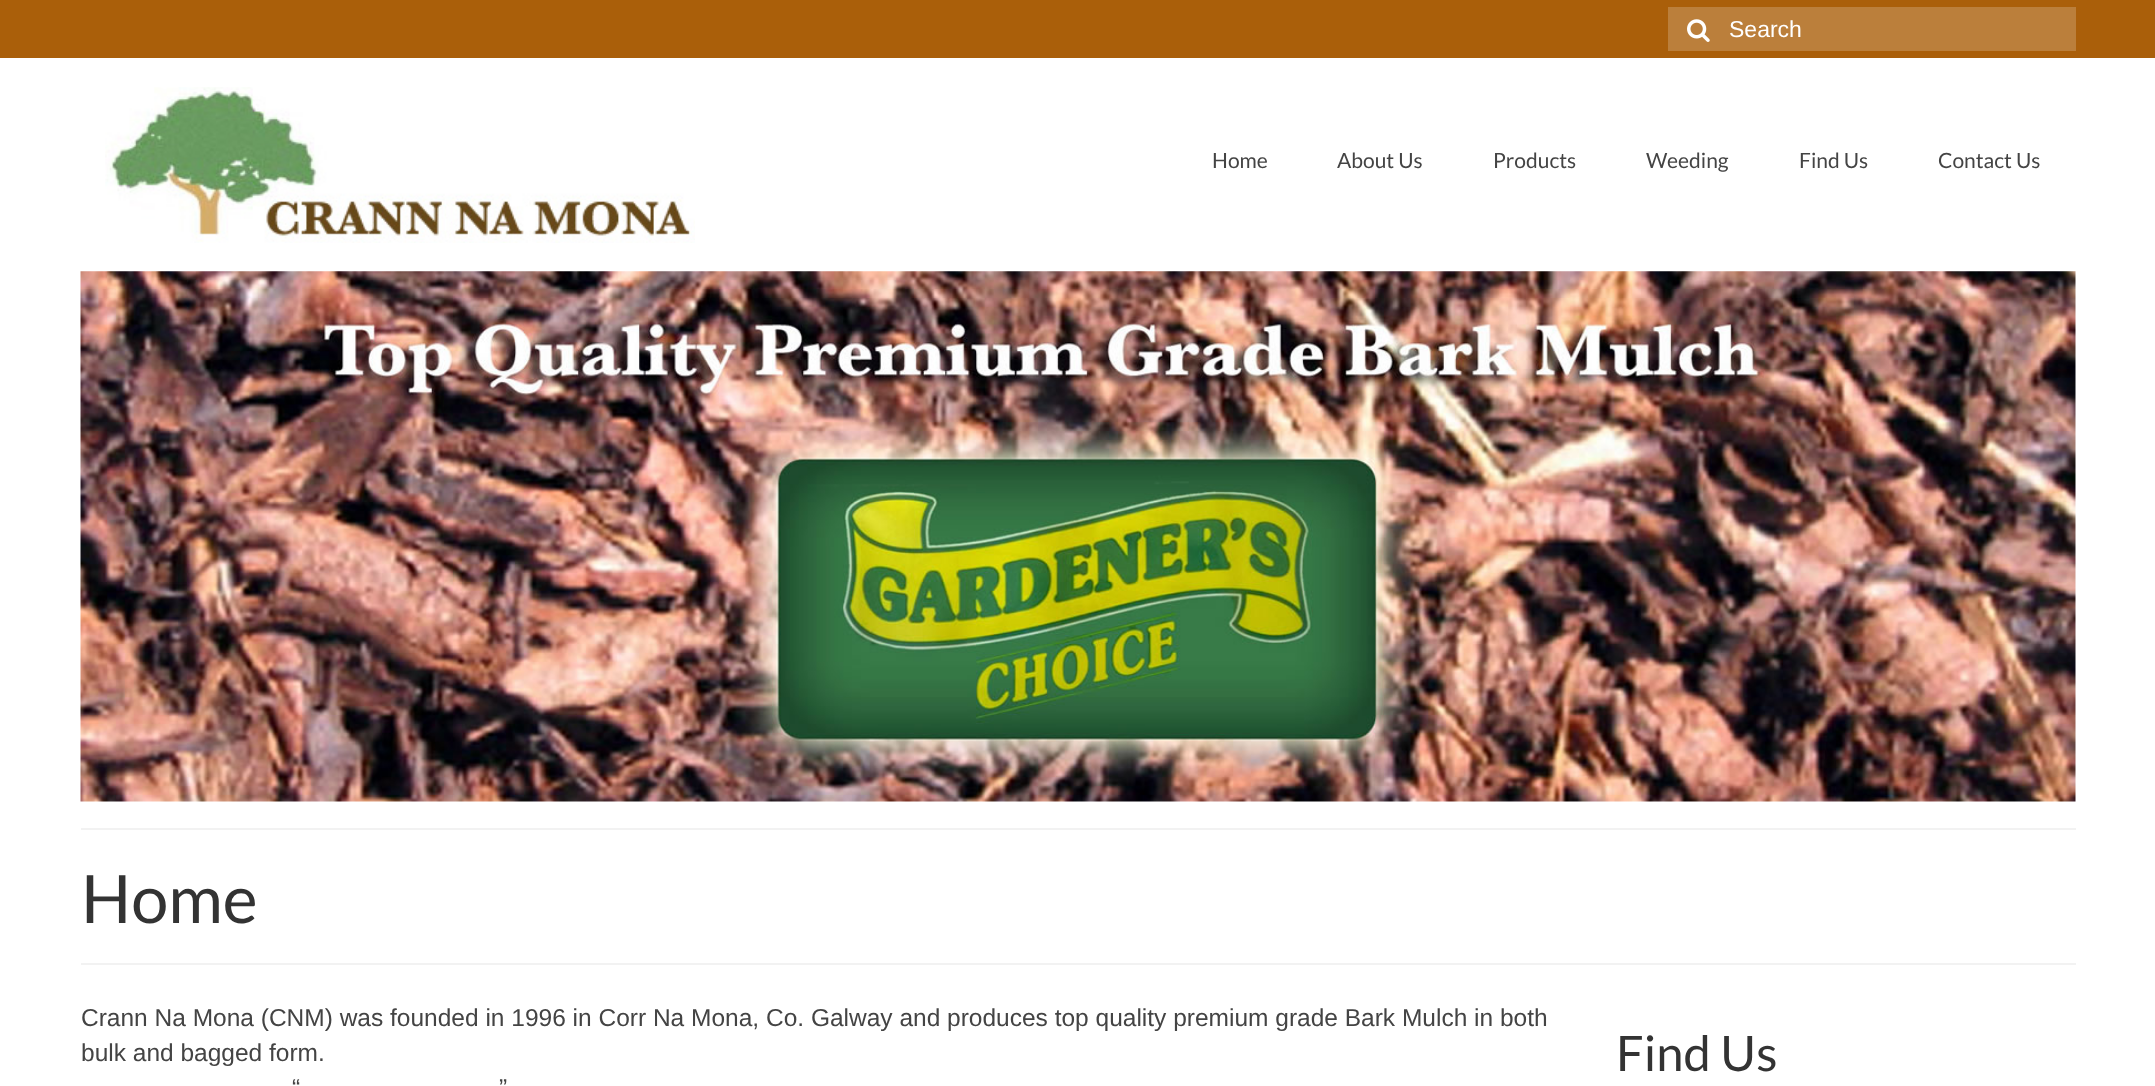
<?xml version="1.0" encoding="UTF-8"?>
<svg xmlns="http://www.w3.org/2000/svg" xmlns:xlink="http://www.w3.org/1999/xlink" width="2155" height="1086">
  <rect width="100%" height="100%" fill="#ffffff" />
  <rect width="2155" height="58" fill="#aa5f0a" />
  <rect x="1668" y="7" width="408" height="44" fill="#bb7f3b" />
  <image x="1687" y="19" width="23" height="23" xlink:href="image1.png" />
  <image x="105" y="87" width="590" height="156" xlink:href="image2.png" />
  <image x="80" y="271" width="1996" height="531" xlink:href="image3.png" />
  <rect x="81" y="828" width="1995" height="2" fill="#f2f2f2" />
  <rect x="81" y="963" width="1995" height="2" fill="#f2f2f2" />
  <text x="1729" y="37" style="font-family: Liberation Sans; font-size: 23px; fill: #ffffff">Search</text>
  <text x="1212" y="168" style="font-family: Lato; font-size: 21px; fill: #444444">Home</text>
  <text x="1337" y="168" style="font-family: Lato; font-size: 21px; fill: #444444">About Us</text>
  <text x="1493" y="168" style="font-family: Lato; font-size: 21px; fill: #444444">Products</text>
  <text x="1646" y="168" style="font-family: Lato; font-size: 21px; fill: #444444">Weeding</text>
  <text x="1799" y="168" style="font-family: Lato; font-size: 21px; fill: #444444">Find Us</text>
  <text x="1938" y="168" style="font-family: Lato; font-size: 21px; fill: #444444">Contact Us</text>
  <text x="81" y="923" style="font-family: Lato; font-size: 66.5px; fill: #333333">Home</text>
  <text x="81" y="1026" style="font-family: Liberation Sans; font-size: 24.5px; fill: #444444">Crann Na Mona (CNM) was founded in 1996 in Corr Na Mona, Co. Galway and produces top quality premium grade Bark Mulch in both</text>
  <text x="81" y="1061" style="font-family: Liberation Sans; font-size: 24.5px; fill: #444444">bulk and bagged form.</text>
  <text x="292" y="1096" style="font-family: Liberation Sans; font-size: 24.5px; fill: #444444">“</text>
  <text x="499" y="1096" style="font-family: Liberation Sans; font-size: 24.5px; fill: #444444">”</text>
  <text x="1616" y="1071" style="font-family: Lato; font-size: 49px; fill: #333333">Find Us</text>
</svg>
